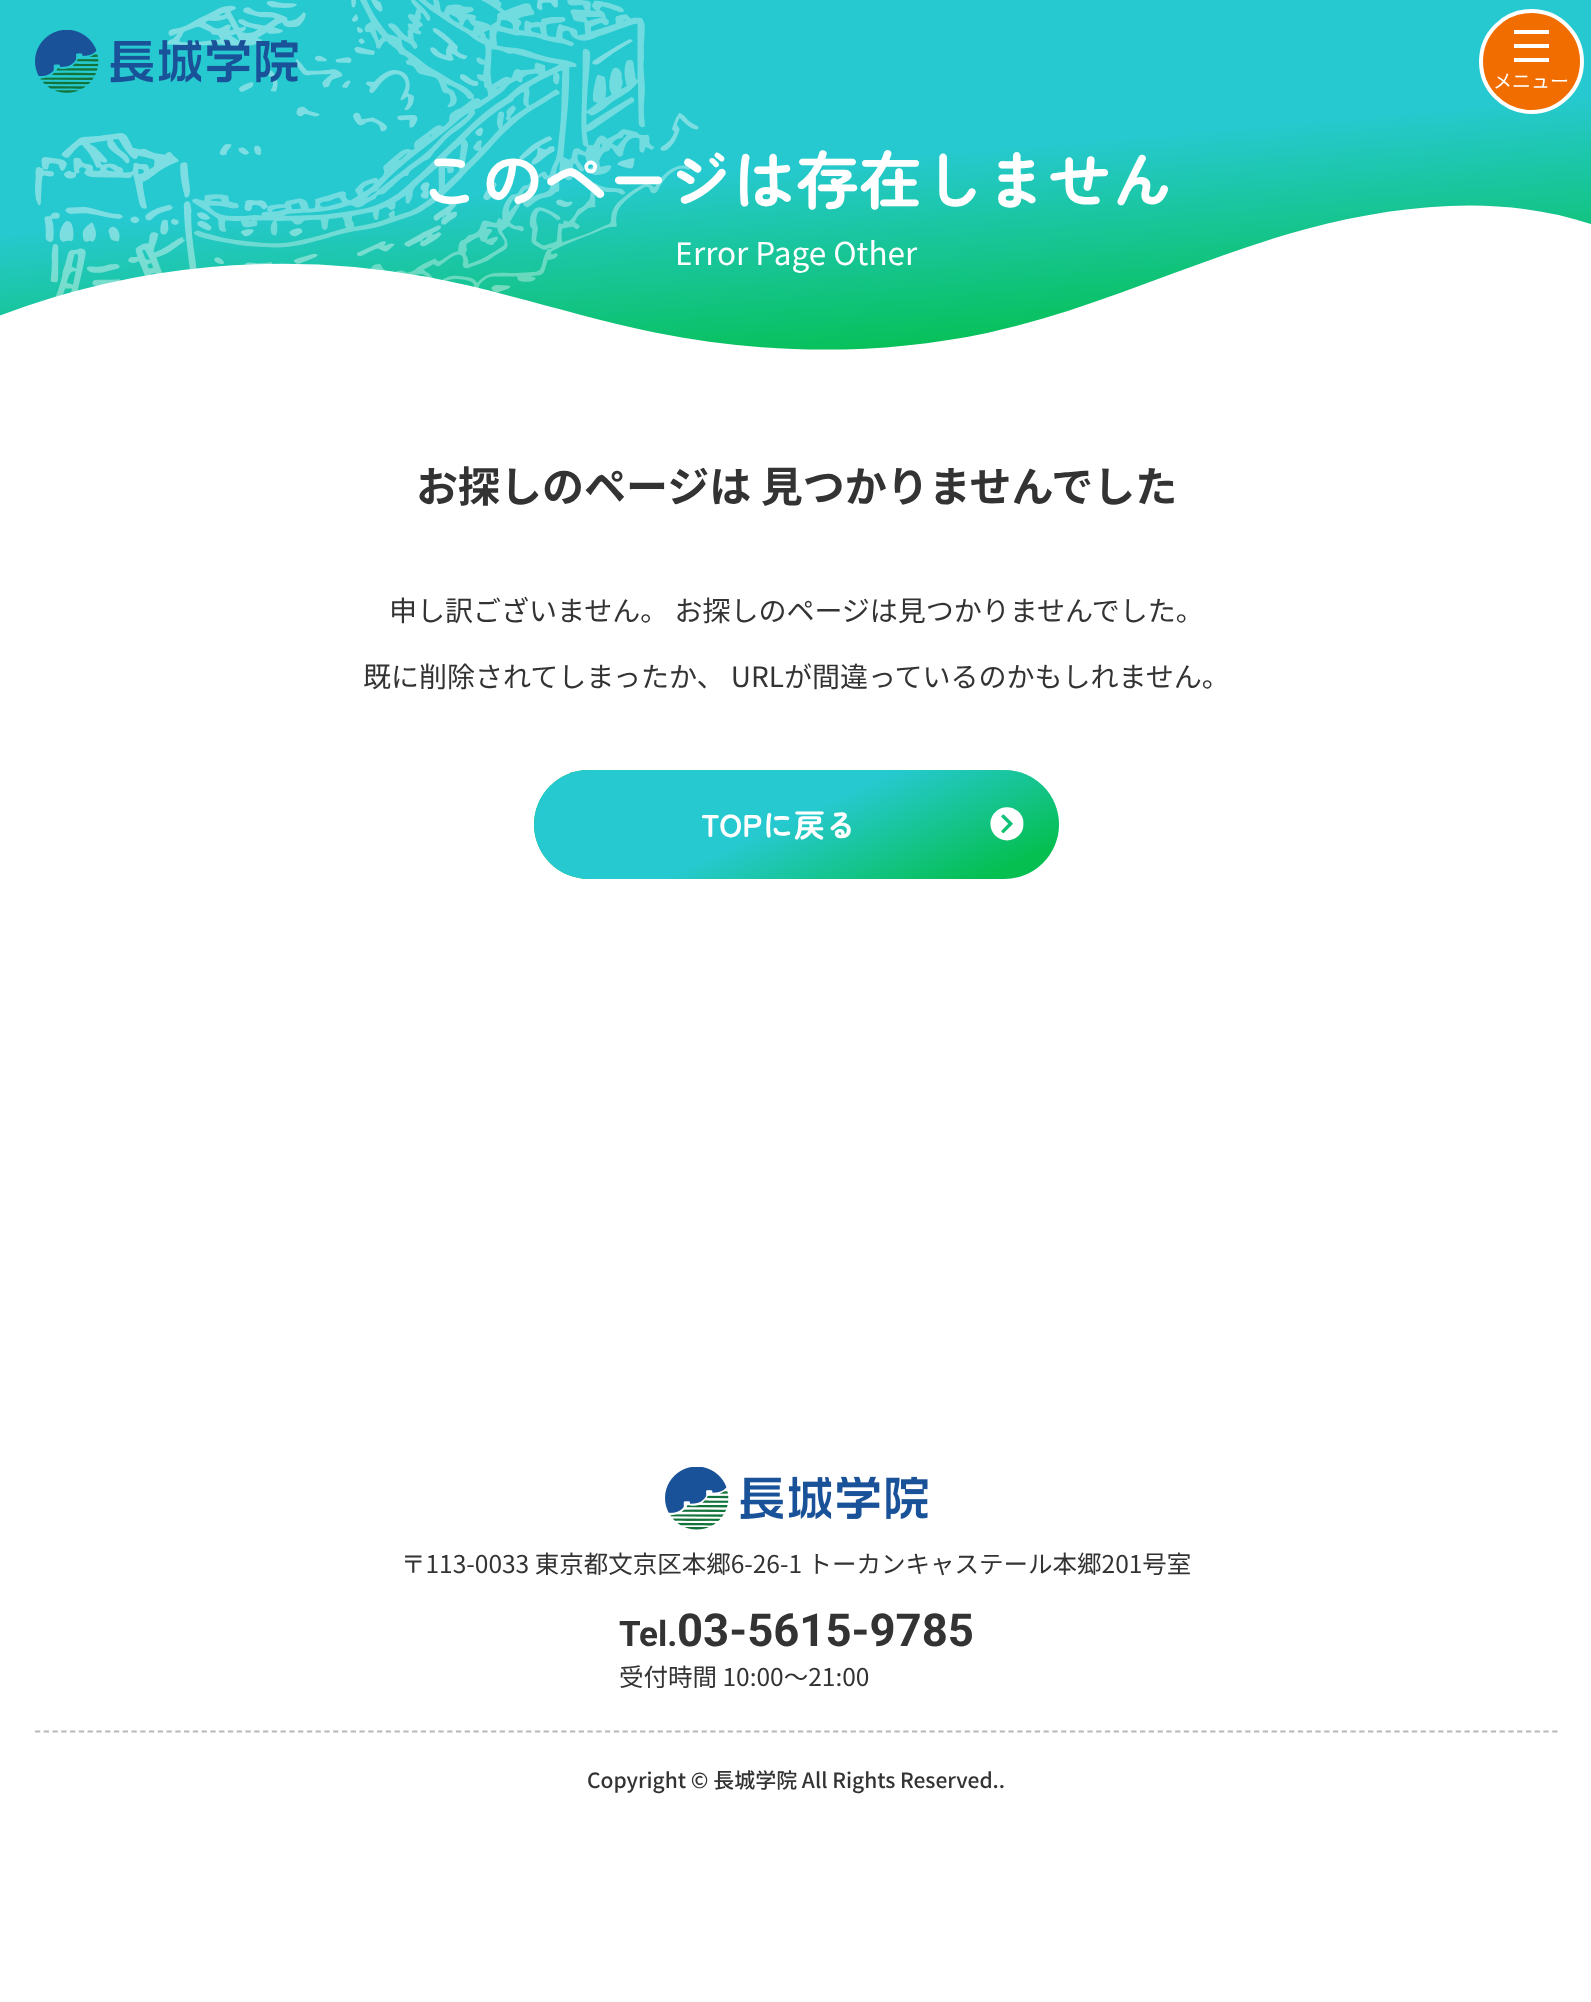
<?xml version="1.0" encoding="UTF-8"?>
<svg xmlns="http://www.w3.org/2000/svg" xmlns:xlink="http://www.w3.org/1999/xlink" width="1591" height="2002">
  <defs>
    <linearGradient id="g1" gradientUnits="userSpaceOnUse" x1="817" y1="418" x2="775" y2="-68"><stop offset="0" stop-color="#05c050" /><stop offset="0.1" stop-color="#05c050" /><stop offset="0.52" stop-color="#26c9cf" /><stop offset="1" stop-color="#26c9cf" /></linearGradient>
    <linearGradient id="g2" gradientUnits="userSpaceOnUse" x1="864" y1="969" x2="729" y2="679"><stop offset="0" stop-color="#000000" stop-opacity="0" /><stop offset="0.1" stop-color="#26c9cf" stop-opacity="0" /><stop offset="0.52" stop-color="#26c9cf" /><stop offset="1" stop-color="#26c9cf" /></linearGradient>
  </defs>
  <rect width="100%" height="100%" fill="#ffffff" />
  <rect width="1591" height="350" fill="url(#g1)" />
  <circle cx="1531.5" cy="61.5" r="50.5" fill="#f26d00" stroke="#ffffff" stroke-width="4" />
  <rect x="1514" y="44" width="35" height="4" fill="#ffffff" />
  <rect x="1514" y="30" width="35" height="4" fill="#ffffff" />
  <rect x="1514" y="58" width="35" height="4" fill="#ffffff" />
  <rect x="534" y="770" width="525" height="109" rx="54.5" fill="#05bf51" />
  <rect x="534" y="770" width="525" height="109" rx="54.5" fill="url(#g2)" />
  <image x="990" y="807" width="34" height="34" xlink:href="image4.png" />
  <image x="665" y="1467" width="263" height="63" xlink:href="image5.png" />
  <path d="M 35 1731.5 h 1522.5" fill="none" stroke="#b8b8b8" stroke-width="1.8" stroke-dasharray="5.25 3.52" />
  <text x="1493" y="88" style="font-family: Noto Sans JP; font-size: 19px; fill: #ffffff">メニュー</text>
  <text x="418" y="204" style="font-family: Zen Maru Gothic; font-size: 63px; font-weight: bold; fill: #ffffff">このページは存在しません</text>
  <text x="675" y="265" style="font-family: Noto Sans; font-size: 31.5px; fill: #ffffff">E</text>
  <text x="693" y="265" style="font-family: Noto Sans JP; font-size: 31.5px; fill: #ffffff">rror Page Other</text>
  <image x="35" y="0" width="664" height="297" xlink:href="image2.png" />
  <image x="35" y="30" width="263" height="63" xlink:href="image1.png" />
  <image x="0" y="205" width="1591" height="145" xlink:href="image3.png" />
  <text x="416" y="502" style="font-family: Noto Sans JP; font-size: 42px; font-weight: bold; fill: #333333">お探しのページは 見つかりませんでした</text>
  <text x="389" y="621" style="font-family: Noto Sans JP; font-size: 28px; fill: #333333">申し訳ございません。 お探しのページは見つかりませんでした。</text>
  <text x="363" y="687" style="font-family: Noto Sans JP; font-size: 28px; fill: #333333">既に削除されてしまったか、 URLが間違っているのかもしれません。</text>
  <text x="701" y="837" style="font-family: Zen Maru Gothic; font-size: 31.5px; font-weight: bold; fill: #ffffff">TOPに戻る</text>
  <text x="401" y="1573" style="font-family: Noto Sans JP; font-size: 24.5px; fill: #333333">〒113-0033 東京都文京区本郷6-26-1 トーカンキャステール本郷201号室</text>
  <text x="619" y="1646" style="font-family: Roboto; font-size: 35px; font-weight: bold; fill: #333333">Tel.</text>
  <text x="677" y="1646" style="font-family: Roboto; font-size: 45.5px; font-weight: bold; fill: #333333">03-5615-9785</text>
  <text x="619" y="1686" style="font-family: Noto Sans JP; font-size: 24.5px; fill: #333333">受付時間 10:00～21:00</text>
  <text x="587" y="1788" style="font-family: Noto Sans JP; font-size: 21px; font-weight: 500; fill: #333333">Copyright © 長城学院 All Rights Reserved..</text>
</svg>
